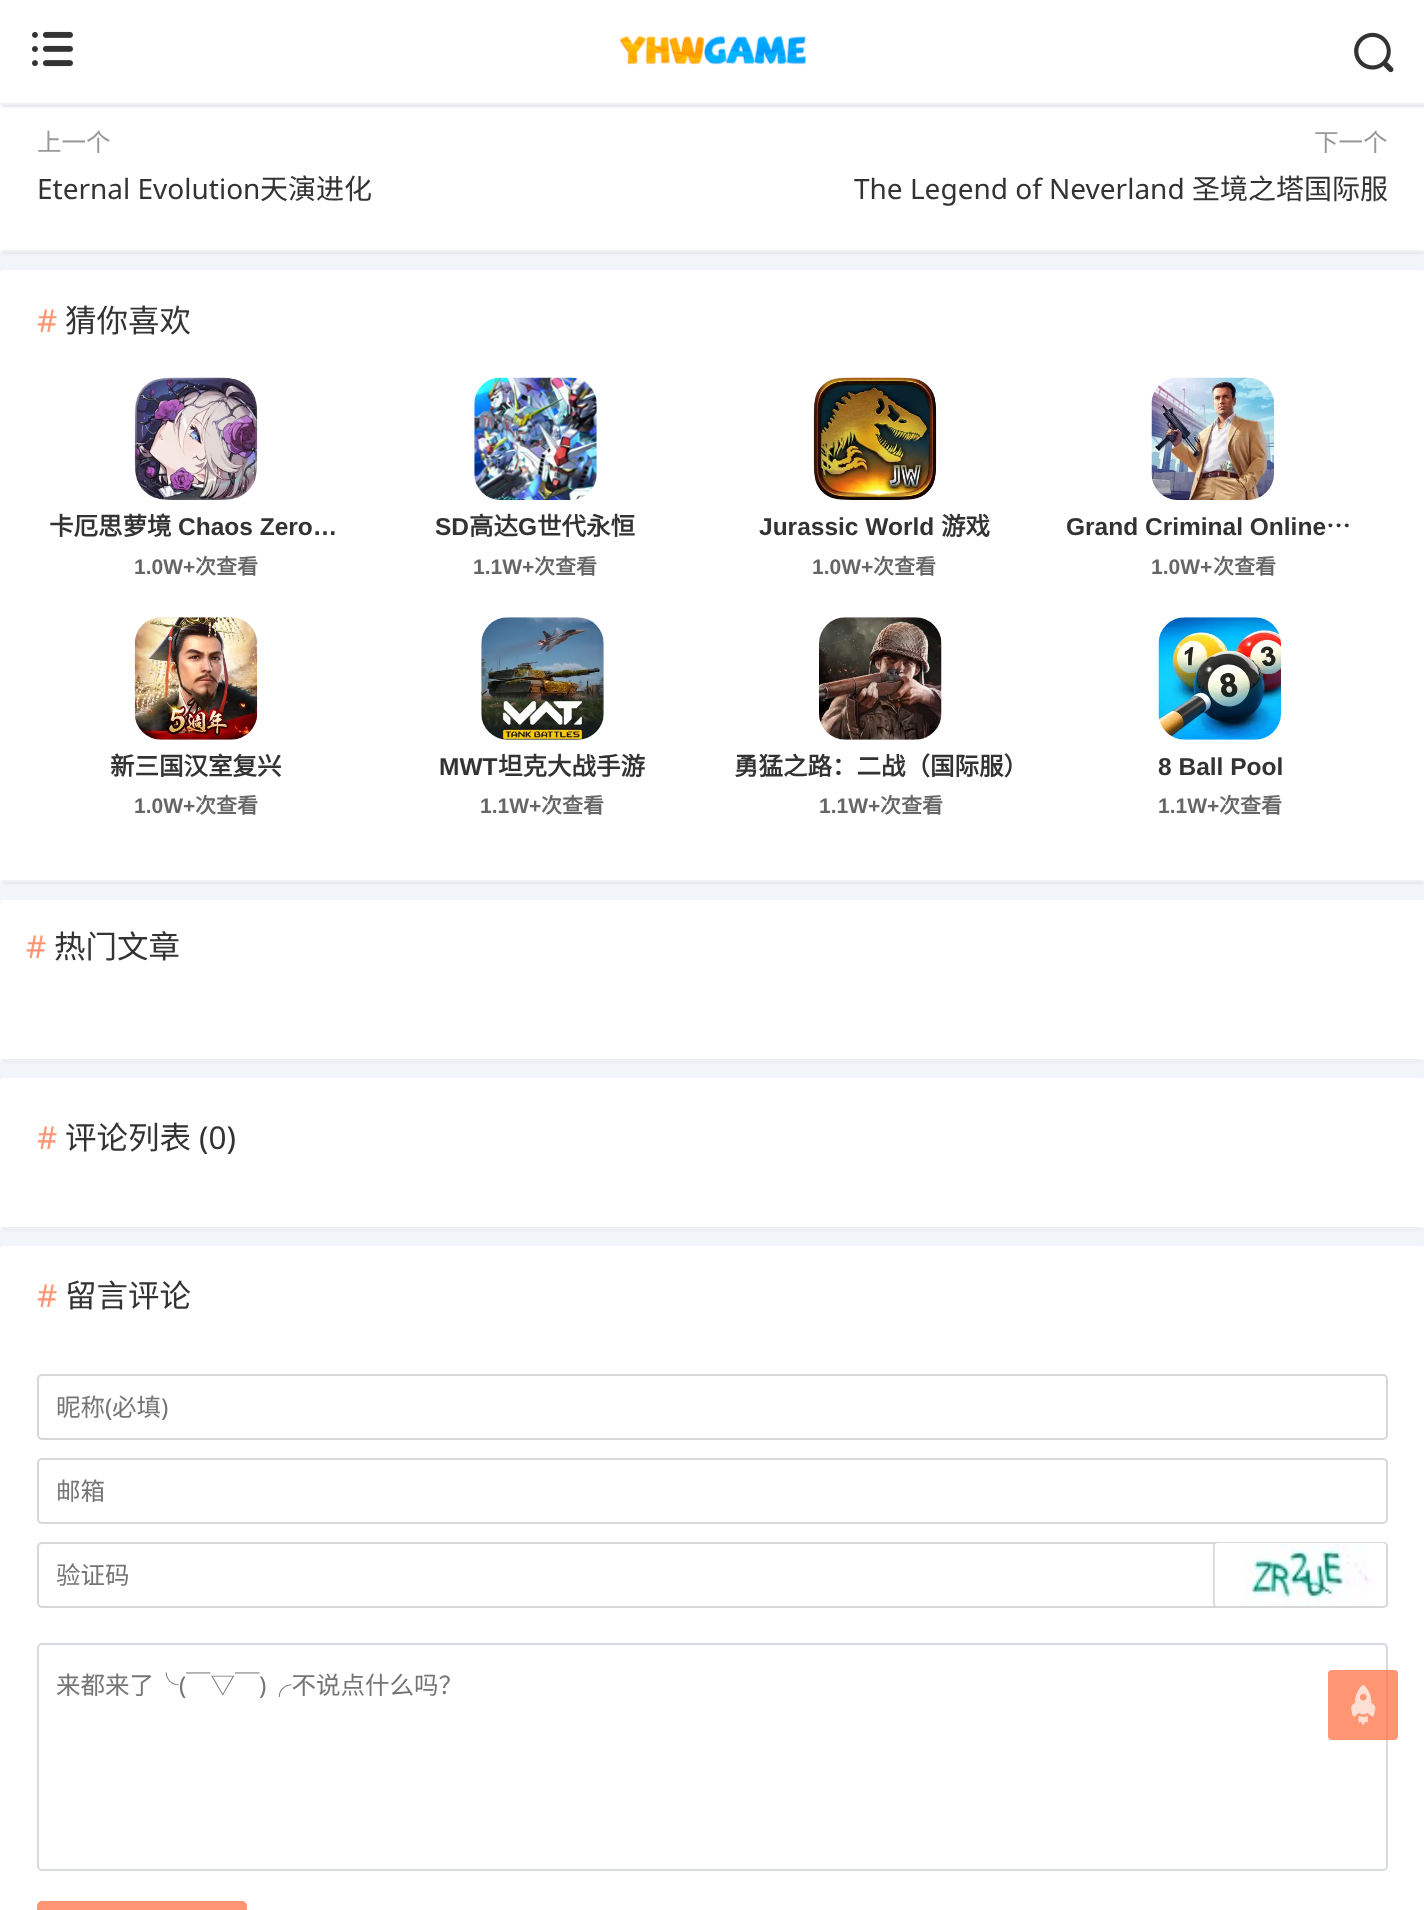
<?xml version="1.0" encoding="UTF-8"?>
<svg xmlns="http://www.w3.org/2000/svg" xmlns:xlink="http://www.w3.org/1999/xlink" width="1424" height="1910">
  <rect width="100%" height="100%" fill="#f2f5f9" />
  <rect x="2" y="86" width="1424" height="168" rx="4" fill="#e6e6eb" filter="blur(1px)" />
  <rect y="84" width="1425" height="168" rx="4" fill="#ffffff" />
  <rect x="2" y="2" width="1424" height="105" fill="#e6e6eb" filter="blur(1px)" />
  <rect width="1424" height="103" fill="#ffffff" />
  <rect y="103" width="1424" height="2" fill="#eef1f5" />
  <image x="32" y="31" width="41" height="36" xlink:href="image1.png" />
  <image x="619" y="35" width="187" height="30" xlink:href="image2.png" />
  <image x="1354" y="32" width="40" height="41" xlink:href="image3.png" />
  <rect x="2" y="250" width="1421" height="2" fill="#eef1f5" />
  <rect x="2" y="271" width="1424" height="613" rx="4" fill="#e6e6eb" filter="blur(1px)" />
  <rect y="270" width="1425" height="612" rx="4" fill="#ffffff" />
  <rect x="2" y="880" width="1421" height="2" fill="#eef1f5" />
  <image x="134" y="377" width="124" height="123" xlink:href="image4.png" />
  <image x="474" y="377" width="123" height="123" xlink:href="image5.png" />
  <image x="813" y="377" width="124" height="123" xlink:href="image6.png" />
  <image x="1151" y="377" width="123" height="123" xlink:href="image7.png" />
  <image x="134" y="617" width="124" height="123" xlink:href="image8.png" />
  <image x="481" y="617" width="123" height="123" xlink:href="image9.png" />
  <image x="819" y="617" width="123" height="123" xlink:href="image10.png" />
  <image x="1158" y="617" width="123" height="123" xlink:href="image11.png" />
  <rect x="2" y="901" width="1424" height="161" rx="4" fill="#e6e6eb" filter="blur(1px)" />
  <rect y="900" width="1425" height="161" rx="4" fill="#ffffff" />
  <rect x="2" y="1059" width="1421" height="2" fill="#eef1f5" />
  <rect x="2" y="1080" width="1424" height="150" rx="4" fill="#e6e6eb" filter="blur(1px)" />
  <rect y="1078" width="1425" height="151" rx="4" fill="#ffffff" />
  <rect x="2" y="1227" width="1421" height="2" fill="#eef1f5" />
  <rect y="1246" width="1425" height="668" rx="4" fill="#ffffff" />
  <rect x="38" y="1375" width="1349" height="64" rx="4" fill="none" stroke="#d7d7d7" stroke-width="2" />
  <rect x="38" y="1459" width="1349" height="64" rx="4" fill="none" stroke="#d7d7d7" stroke-width="2" />
  <rect x="38" y="1543" width="1349" height="64" rx="4" fill="none" stroke="#d7d7d7" stroke-width="2" />
  <rect x="1214" y="1543" width="173" height="64" rx="4" fill="none" stroke="#d7d7d7" stroke-width="2" />
  <image x="1214" y="1543" width="172" height="63" xlink:href="image12.png" />
  <rect x="38" y="1644" width="1349" height="226" rx="4" fill="none" stroke="#d7dae0" stroke-width="2" />
  <rect x="38" y="1902" width="208" height="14" rx="4" fill="#ff9572" stroke="#ff9572" stroke-width="2" />
  <rect x="1328" y="1670" width="70" height="70" rx="4" fill="#ff6836" fill-opacity="0.7" />
  <image x="1351" y="1684" width="25" height="41" xlink:href="image13.png" />
  <text x="37" y="151" style="font-family: Noto Sans CJK SC; font-size: 24.5px; fill: #999999">上一个</text>
  <text x="37" y="199" style="font-family: Noto Sans; font-size: 28px; fill: #333333">Eternal Evolution</text>
  <text x="260" y="199" style="font-family: Noto Sans CJK SC; font-size: 28px; fill: #333333">天演进化</text>
  <text x="1314" y="151" style="font-family: Noto Sans CJK SC; font-size: 24.5px; fill: #999999">下一个</text>
  <text x="854" y="199" style="font-family: Noto Sans; font-size: 28px; fill: #333333">The Legend of Neverland</text>
  <text x="1192" y="199" style="font-family: Noto Sans CJK SC; font-size: 28px; fill: #333333">圣境之塔国际服</text>
  <text x="37" y="332" style="font-family: Noto Sans; font-size: 31.5px; fill: #ff9572">#</text>
  <text x="65" y="332" style="font-family: Noto Sans CJK SC; font-size: 31.5px; fill: #333333">猜你喜欢</text>
  <text x="49" y="535" style="font-family: Noto Sans CJK SC; font-size: 24.5px; font-weight: bold; fill: #333333">卡厄思萝境</text>
  <text x="178" y="535" style="font-family: Liberation Sans; font-size: 24.5px; font-weight: bold; fill: #333333">Chaos Zero…</text>
  <text x="134" y="574" style="font-family: Liberation Sans; font-size: 21px; font-weight: bold; fill: #666666">1.0W+</text>
  <text x="195" y="574" style="font-family: Noto Sans CJK SC; font-size: 21px; font-weight: bold; fill: #666666">次查看</text>
  <text x="435" y="535" style="font-family: Liberation Sans; font-size: 24.5px; font-weight: bold; fill: #333333">SD</text>
  <text x="469" y="535" style="font-family: Noto Sans CJK SC; font-size: 24.5px; font-weight: bold; fill: #333333">高达</text>
  <text x="518" y="535" style="font-family: Liberation Sans; font-size: 24.5px; font-weight: bold; fill: #333333">G</text>
  <text x="537" y="535" style="font-family: Noto Sans CJK SC; font-size: 24.5px; font-weight: bold; fill: #333333">世代永恒</text>
  <text x="473" y="574" style="font-family: Liberation Sans; font-size: 21px; font-weight: bold; fill: #666666">1.1W+</text>
  <text x="534" y="574" style="font-family: Noto Sans CJK SC; font-size: 21px; font-weight: bold; fill: #666666">次查看</text>
  <text x="759" y="535" style="font-family: Liberation Sans; font-size: 24.5px; font-weight: bold; fill: #333333">Jurassic World</text>
  <text x="941" y="535" style="font-family: Noto Sans CJK SC; font-size: 24.5px; font-weight: bold; fill: #333333">游戏</text>
  <text x="812" y="574" style="font-family: Liberation Sans; font-size: 21px; font-weight: bold; fill: #666666">1.0W+</text>
  <text x="873" y="574" style="font-family: Noto Sans CJK SC; font-size: 21px; font-weight: bold; fill: #666666">次查看</text>
  <text x="1066" y="535" style="font-family: Liberation Sans; font-size: 24.5px; font-weight: bold; fill: #333333">Grand Criminal Online</text>
  <text x="1326" y="535" style="font-family: Noto Sans CJK SC; font-size: 24.5px; font-weight: bold; fill: #333333">…</text>
  <text x="1151" y="574" style="font-family: Liberation Sans; font-size: 21px; font-weight: bold; fill: #666666">1.0W+</text>
  <text x="1213" y="574" style="font-family: Noto Sans CJK SC; font-size: 21px; font-weight: bold; fill: #666666">次查看</text>
  <text x="110" y="775" style="font-family: Noto Sans CJK SC; font-size: 24.5px; font-weight: bold; fill: #333333">新三国汉室复兴</text>
  <text x="134" y="813" style="font-family: Liberation Sans; font-size: 21px; font-weight: bold; fill: #666666">1.0W+</text>
  <text x="195" y="813" style="font-family: Noto Sans CJK SC; font-size: 21px; font-weight: bold; fill: #666666">次查看</text>
  <text x="439" y="775" style="font-family: Liberation Sans; font-size: 24.5px; font-weight: bold; fill: #333333">MWT</text>
  <text x="498" y="775" style="font-family: Noto Sans CJK SC; font-size: 24.5px; font-weight: bold; fill: #333333">坦克大战手游</text>
  <text x="480" y="813" style="font-family: Liberation Sans; font-size: 21px; font-weight: bold; fill: #666666">1.1W+</text>
  <text x="541" y="813" style="font-family: Noto Sans CJK SC; font-size: 21px; font-weight: bold; fill: #666666">次查看</text>
  <text x="734" y="775" style="font-family: Noto Sans CJK SC; font-size: 24.5px; font-weight: bold; fill: #333333">勇猛之路：二战（国际服）</text>
  <text x="819" y="813" style="font-family: Liberation Sans; font-size: 21px; font-weight: bold; fill: #666666">1.1W+</text>
  <text x="880" y="813" style="font-family: Noto Sans CJK SC; font-size: 21px; font-weight: bold; fill: #666666">次查看</text>
  <text x="1158" y="775" style="font-family: Liberation Sans; font-size: 24.5px; font-weight: bold; fill: #333333">8 Ball Pool</text>
  <text x="1158" y="813" style="font-family: Liberation Sans; font-size: 21px; font-weight: bold; fill: #666666">1.1W+</text>
  <text x="1219" y="813" style="font-family: Noto Sans CJK SC; font-size: 21px; font-weight: bold; fill: #666666">次查看</text>
  <text x="26" y="958" style="font-family: Noto Sans; font-size: 31.5px; fill: #ff9572">#</text>
  <text x="54" y="958" style="font-family: Noto Sans CJK SC; font-size: 31.5px; fill: #333333">热门文章</text>
  <text x="37" y="1149" style="font-family: Noto Sans; font-size: 31.5px; fill: #ff9572">#</text>
  <text x="65" y="1149" style="font-family: Noto Sans CJK SC; font-size: 31.5px; fill: #333333">评论列表</text>
  <text x="199" y="1149" style="font-family: Noto Sans; font-size: 31.5px; fill: #333333">(0)</text>
  <text x="37" y="1307" style="font-family: Noto Sans; font-size: 31.5px; fill: #ff9572">#</text>
  <text x="65" y="1307" style="font-family: Noto Sans CJK SC; font-size: 31.5px; fill: #333333">留言评论</text>
  <text x="56" y="1416" style="font-family: Noto Sans CJK SC; font-size: 24.5px; fill: #757575">昵称</text>
  <text x="105" y="1416" style="font-family: Noto Sans; font-size: 24.5px; fill: #757575">(</text>
  <text x="112" y="1416" style="font-family: Noto Sans CJK SC; font-size: 24.5px; fill: #757575">必填</text>
  <text x="161" y="1416" style="font-family: Noto Sans; font-size: 24.5px; fill: #757575">)</text>
  <text x="56" y="1500" style="font-family: Noto Sans CJK SC; font-size: 24.5px; fill: #757575">邮箱</text>
  <text x="56" y="1584" style="font-family: Noto Sans CJK SC; font-size: 24.5px; fill: #757575">验证码</text>
  <text x="56" y="1694" style="font-family: Noto Sans CJK SC; font-size: 24.5px; fill: #757575">来都来了╰</text>
  <text x="179" y="1694" style="font-family: Noto Sans; font-size: 24.5px; fill: #757575">(</text>
  <text x="186" y="1694" style="font-family: Noto Sans CJK SC; font-size: 24.5px; fill: #757575">￣▽￣</text>
  <text x="259" y="1694" style="font-family: Noto Sans; font-size: 24.5px; fill: #757575">)</text>
  <text x="267" y="1694" style="font-family: Noto Sans CJK SC; font-size: 24.5px; fill: #757575">╭不说点什么吗？</text>
</svg>
